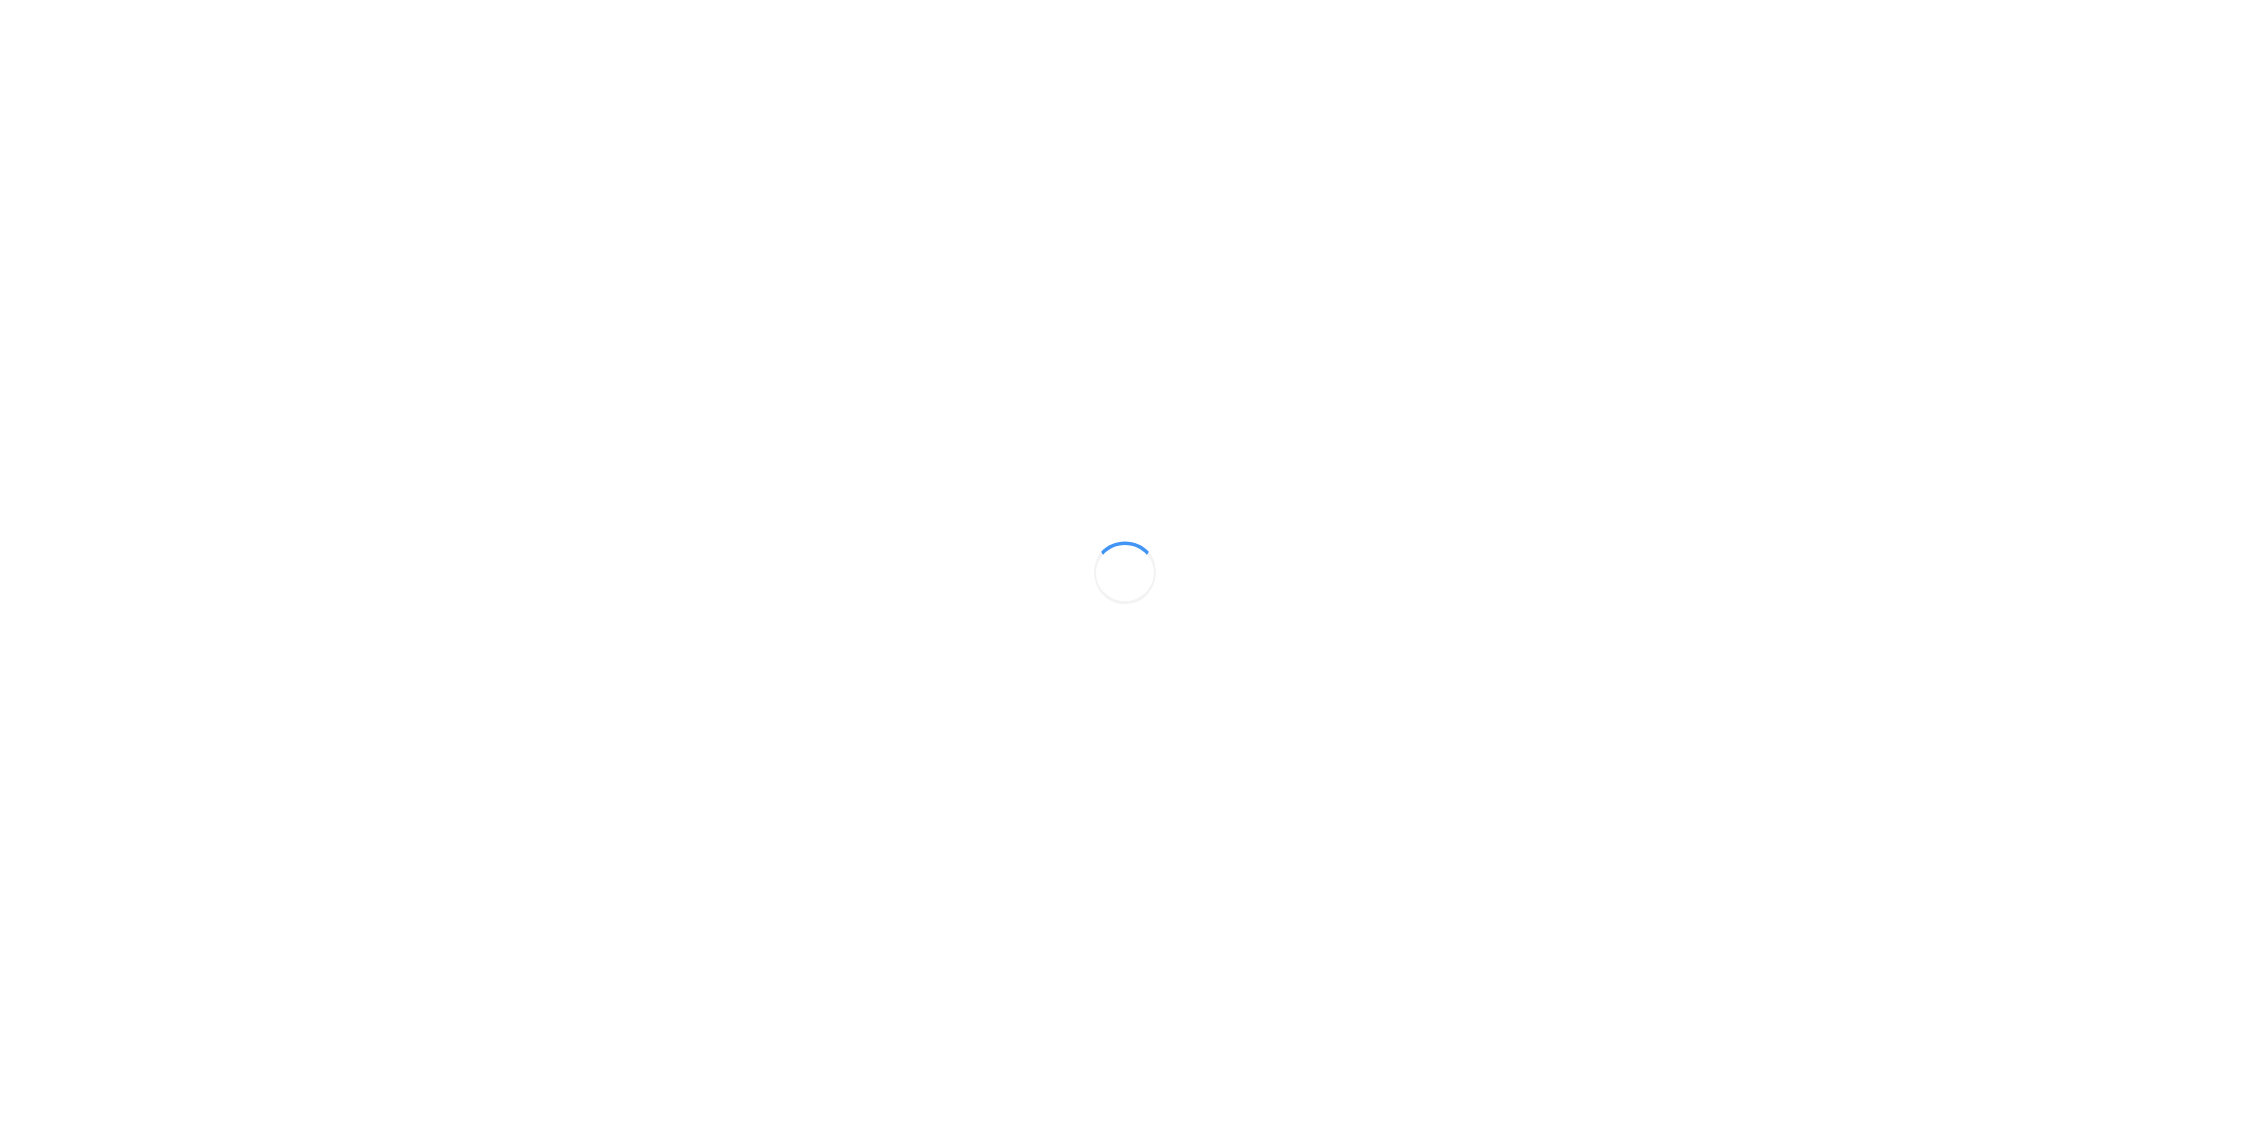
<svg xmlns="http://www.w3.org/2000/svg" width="2249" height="1144">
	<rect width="100%" height="100%" fill="#FFFFFF" />
	<path d="M1125 545C1116 545 1108 549 1103 555L1101 552C1113 538 1137 538 1149 552L1147 555C1142 549 1134 545 1125 545Z" fill="#4295F5" />
	<path d="M1149 552C1159 565 1158 583 1147 595L1145 593C1156 583 1157 566 1147 555Z" fill="#F3F3F3" />
	<path d="M1121 604C1114 603 1108 600 1103 595L1105 593C1116 604 1134 604 1145 593L1147 595C1139 603 1132 604 1121 604Z" fill="#F3F3F3" />
	<path d="M1103 595C1092 583 1091 565 1101 552L1103 555C1093 566 1094 583 1105 593Z" fill="#F3F3F3" />
</svg>
